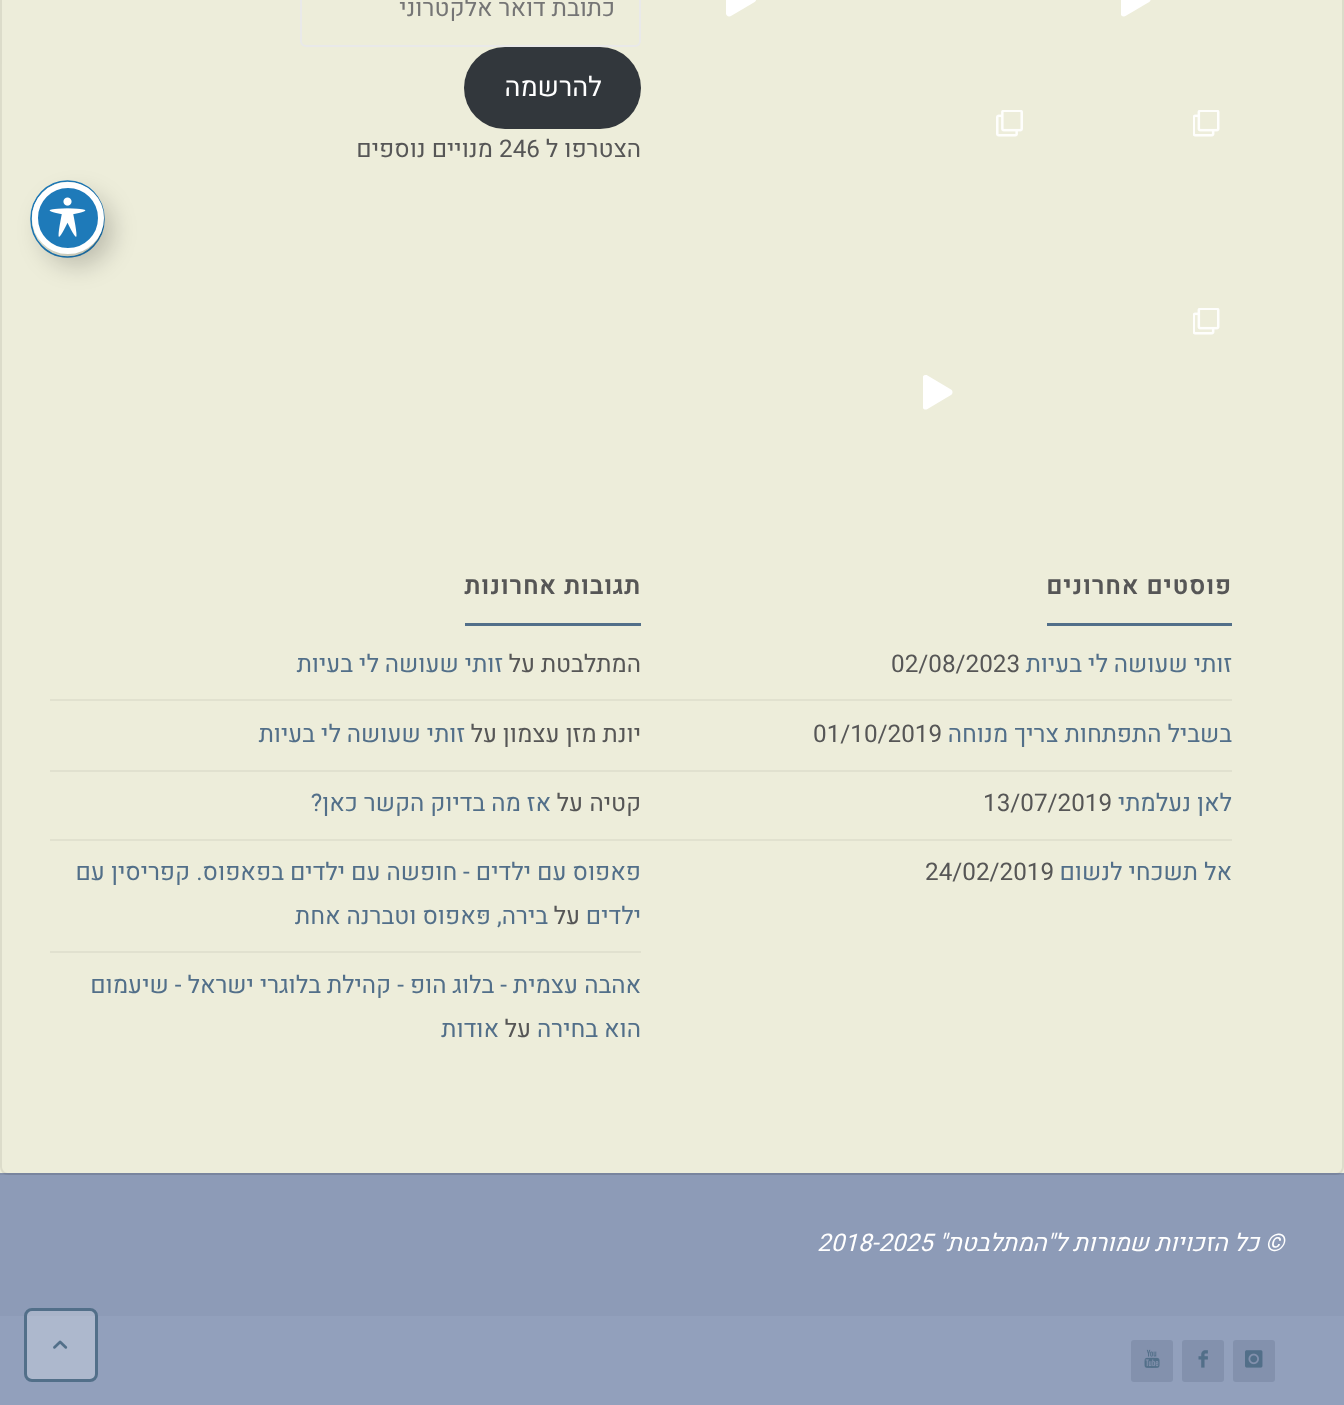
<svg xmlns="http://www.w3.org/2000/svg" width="1344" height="1405">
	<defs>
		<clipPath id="clip1"><rect x="923" y="375" width="30" height="35" /></clipPath>
	</defs>
	<rect width="100%" height="100%" fill="#EDEDDA" />
	<rect x="0" y="1173" width="1344" height="2" fill="#8390AA" />
	<rect x="1" y="-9" width="1342" height="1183" rx="7" fill="none" stroke="#000000" stroke-opacity="0.07" stroke-width="2" />
	<image x="1121" y="0" width="30" height="17" href="assets/img1.png" />
	<image x="726" y="0" width="30" height="17" href="assets/img2.png" />
	<image x="1193" y="110" width="27" height="27" href="assets/img3.png" />
	<image x="996" y="110" width="27" height="27" href="assets/img4.png" />
	<image x="1193" y="308" width="27" height="27" href="assets/img3.png" />
	<g clip-path="url(#clip1)">
		<path d="M951 389.5L927.5 375.5C925.5 374.5 922.5 375.5 922.5 378V406.5C922.5 409 925 410.5 927.5 409L951 395C953 394 953 390.5 951 389.5Z" fill="#FFFFFF" />
	</g>
	<rect x="301" y="-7" width="339" height="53" rx="5" fill="none" stroke="#E9E9E9" stroke-width="2" />
	<text x="615" y="16" font-family="Heebo" font-size="24.25" direction="rtl" fill="#757575">כתובת דואר אלקטרוני</text>
	<rect x="464" y="47" width="177" height="82" rx="41" fill="#32373C" />
	<text x="602" y="96" font-family="Heebo" font-size="27" direction="rtl" fill="#FFFFFF">להרשמה</text>
	<text x="641" y="157" font-family="Heebo" font-size="24.25" direction="rtl" fill="#565656">הצטרפו ל</text>
	<text x="499" y="157" font-family="Heebo" font-size="24.25" fill="#565656">246</text>
	<text x="493" y="157" font-family="Heebo" font-size="24.25" direction="rtl" fill="#565656">מנויים נוספים</text>
	<text x="1232" y="594" font-family="Heebo" font-size="24.25" font-weight="700" letter-spacing="1.5" direction="rtl" fill="#565656">פוסטים אחרונים</text>
	<rect x="1047" y="623" width="185" height="3" fill="#526F89" />
	<rect x="50" y="699" width="1182" height="2" fill="#E1E1CF" />
	<text x="1232" y="672" font-family="Heebo" font-size="24.25" direction="rtl" fill="#526F89">זותי שעושה לי בעיות</text>
	<text x="891" y="672" font-family="Heebo" font-size="24.25" fill="#565656">02/08/2023</text>
	<rect x="50" y="770" width="1182" height="2" fill="#E1E1CF" />
	<text x="1232" y="742" font-family="Heebo" font-size="24.25" direction="rtl" fill="#526F89">בשביל התפתחות צריך מנוחה</text>
	<text x="813" y="742" font-family="Heebo" font-size="24.25" fill="#565656">01/10/2019</text>
	<rect x="50" y="839" width="1182" height="2" fill="#E1E1CF" />
	<text x="1232" y="811" font-family="Heebo" font-size="24.25" direction="rtl" fill="#526F89">לאן נעלמתי</text>
	<text x="983" y="811" font-family="Heebo" font-size="24.25" fill="#565656">13/07/2019</text>
	<text x="1232" y="880" font-family="Heebo" font-size="24.25" direction="rtl" fill="#526F89">אל תשכחי לנשום</text>
	<text x="925" y="880" font-family="Heebo" font-size="24.25" fill="#565656">24/02/2019</text>
	<text x="641" y="594" font-family="Heebo" font-size="24.25" font-weight="700" letter-spacing="1.5" direction="rtl" fill="#565656">תגובות אחרונות</text>
	<rect x="465" y="623" width="176" height="3" fill="#526F89" />
	<g font-family="Heebo" font-size="24.25" direction="rtl" fill="#565656">
		<text x="641" y="672">המתלבטת</text>
		<text x="535" y="672">על</text>
	</g>
	<text x="503" y="672" font-family="Heebo" font-size="24.25" direction="rtl" fill="#526F89">זותי שעושה לי בעיות</text>
	<g font-family="Heebo" font-size="24.25" direction="rtl" fill="#565656">
		<text x="641" y="742">יונת מזן עצמון</text>
		<text x="497" y="742">על</text>
	</g>
	<text x="465" y="742" font-family="Heebo" font-size="24.25" direction="rtl" fill="#526F89">זותי שעושה לי בעיות</text>
	<g font-family="Heebo" font-size="24.25" direction="rtl" fill="#565656">
		<text x="641" y="811">קטיה</text>
		<text x="583" y="811">על</text>
	</g>
	<text x="551" y="811" font-family="Heebo" font-size="24.25" direction="rtl" fill="#526F89">אז מה בדיוק הקשר כאן?</text>
	<rect x="50" y="951" width="591" height="2" fill="#E1E1CF" />
	<g font-family="Heebo" font-size="24.25" direction="rtl" fill="#526F89">
		<text x="641" y="880">פאפוס עם ילדים - חופשה עם ילדים בפאפוס. קפריסין עם</text>
		<text x="641" y="924">ילדים</text>
	</g>
	<text x="580" y="924" font-family="Heebo" font-size="24.25" direction="rtl" fill="#565656">על</text>
	<g font-family="Heebo" font-size="24.25" direction="rtl" fill="#526F89">
		<text x="548" y="924">בירה, פּאפוס וטברנה אחת</text>
		<text x="641" y="993">אהבה עצמית - בלוג הופ - קהילת בלוגרי ישראל - שיעמום</text>
		<text x="641" y="1037">הוא בחירה</text>
	</g>
	<text x="531" y="1037" font-family="Heebo" font-size="24.25" direction="rtl" fill="#565656">על</text>
	<text x="499" y="1037" font-family="Heebo" font-size="24.25" direction="rtl" fill="#526F89">אודות</text>
	<rect x="0" y="1175" width="1344" height="141" fill="#8D9BB7" />
	<text x="1284" y="1251" font-family="Heebo" font-size="24.25" font-style="italic" direction="rtl" fill="#FFFFFF">© כל הזכויות שמורות ל"המתלבטת"</text>
	<text x="817" y="1251" font-family="Heebo" font-size="24.25" font-style="italic" fill="#FFFFFF">2018-2025</text>
	<rect x="0" y="1316" width="1344" height="89" fill="#92A0BC" />
	<rect x="1233" y="1340" width="42" height="42" rx="3" fill="#8391AD" />
	<image x="1245" y="1350" width="18" height="18" href="assets/img5.png" />
	<rect x="1182" y="1340" width="42" height="42" rx="3" fill="#8391AD" />
	<image x="1198" y="1350" width="10" height="18" href="assets/img6.png" />
	<rect x="1131" y="1340" width="42" height="42" rx="3" fill="#8391AD" />
	<image x="1144" y="1349" width="16" height="19" href="assets/img7.png" />
	<rect x="25.5" y="1309.5" width="71" height="71" rx="6.5" fill="#FFFFFF" fill-opacity="0.25" stroke="#526F89" stroke-width="3" />
	<image x="53" y="1340" width="15" height="9" href="assets/img8.png" />
	<path d="M67.5 181C88 181 104 198 104 219C104 240 88 257 67.5 257C47 257 31 240 31 219C31 198 47 181 67.5 181Z" fill="none" stroke="#1E7AB9" stroke-width="1.5" />
	<rect x="41" y="194" width="72" height="72" rx="36" fill="#000000" fill-opacity="0.2" filter="blur(12px)" />
	<circle cx="68" cy="218" r="33" fill="#1E7AB9" stroke="#FFFFFF" stroke-width="6" />
	<image x="49" y="197" width="37" height="40" href="assets/img9.png" />
</svg>
